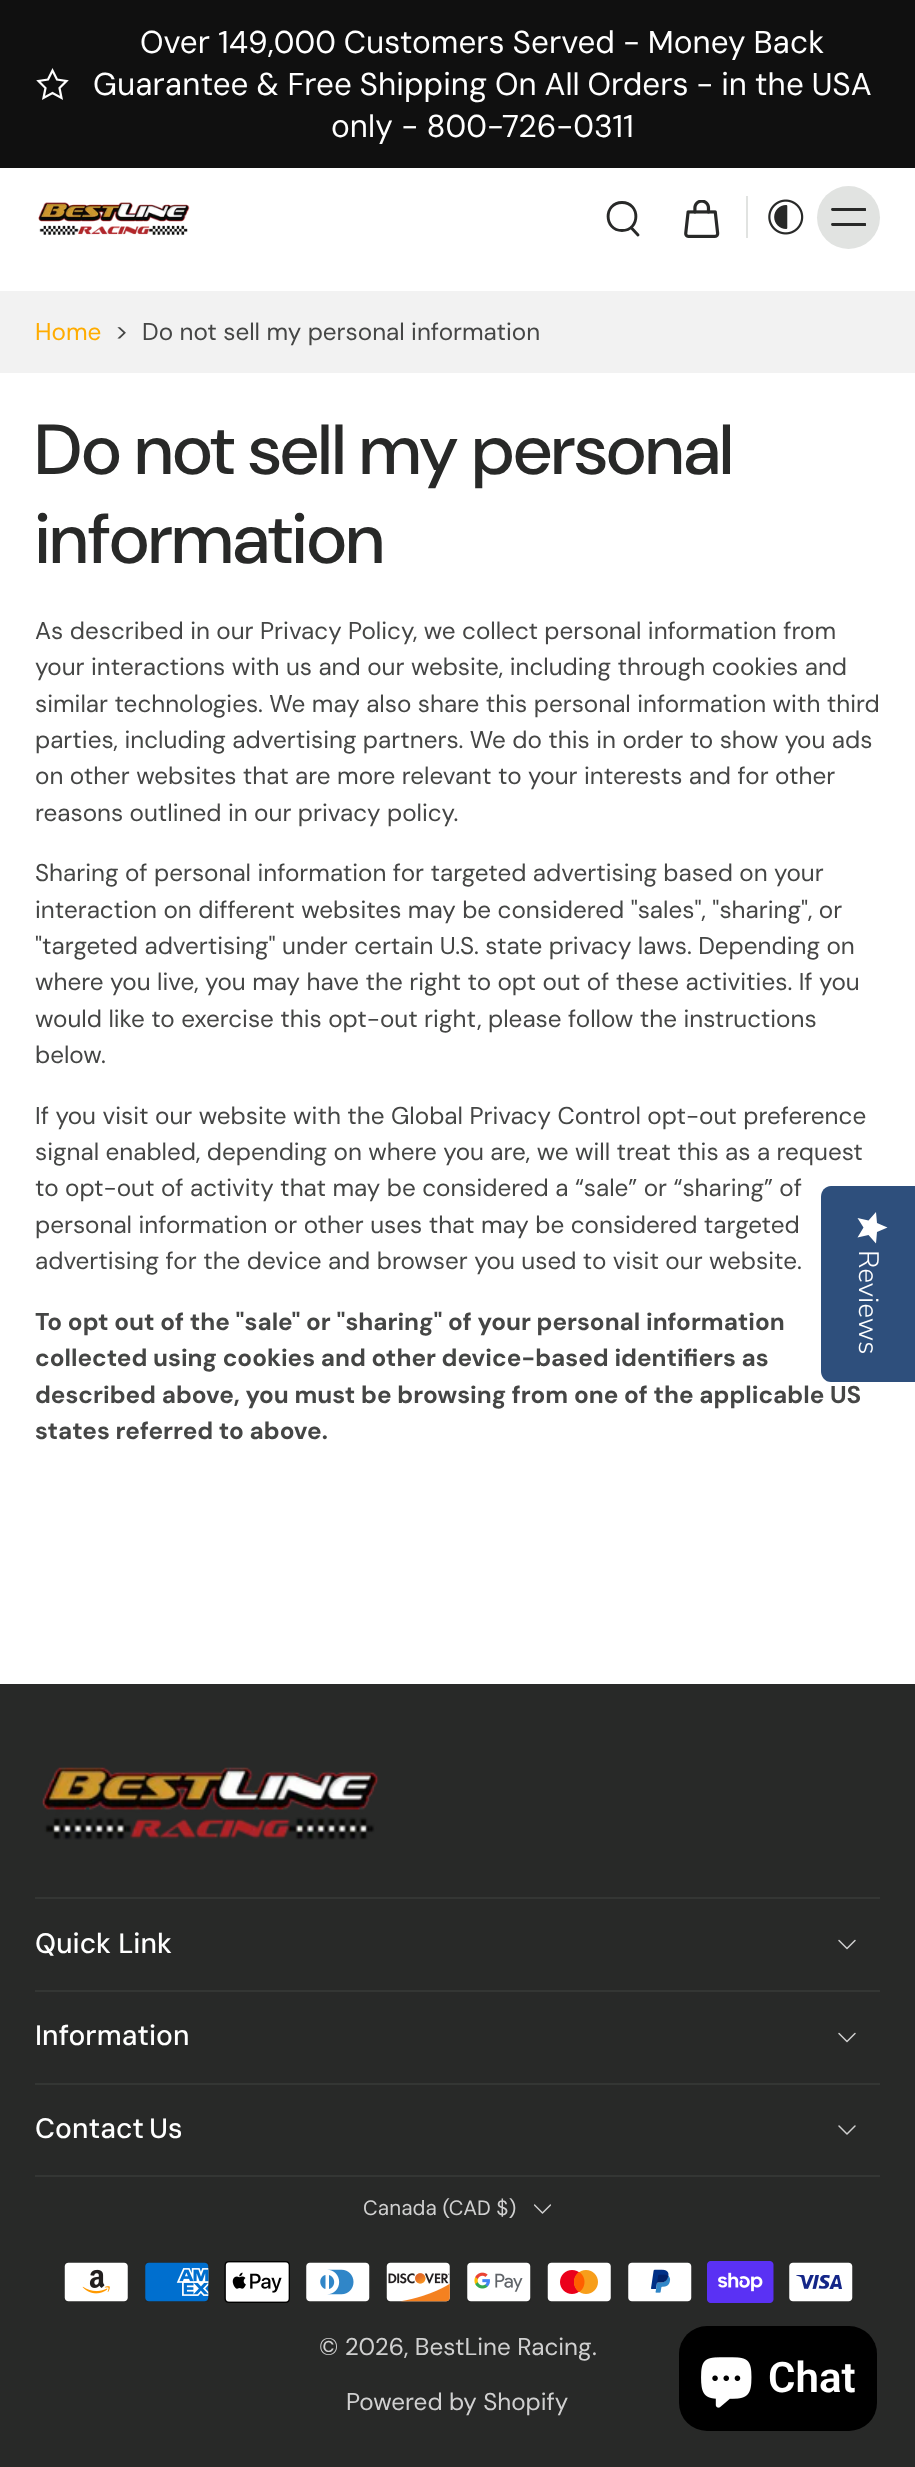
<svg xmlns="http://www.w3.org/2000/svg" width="915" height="2467">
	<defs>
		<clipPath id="clip1"><rect x="831" y="200" width="35" height="35" /></clipPath>
		<clipPath id="clip2"><rect x="534" y="2200" width="17" height="17" /></clipPath>
		<linearGradient id="g1" gradientUnits="userSpaceOnUse" x1="887" y1="1212" x2="887" y2="1243"><stop offset="1" stop-color="#FFFFFF" /><stop offset="1" stop-color="#EAEAEA" /></linearGradient>
	</defs>
	<rect width="100%" height="100%" fill="#FFFFFF" />
	<rect x="0" y="0" width="915" height="168" fill="#101010" />
	<path d="M59.5 88L66.5 81L57 79.5L52.5 70.5L48 79.5L38.5 81L45.5 88L43.5 98L52.5 93L61.5 98Z" fill="none" stroke="#FFFFFF" stroke-width="2.2" />
	<g font-family="DM Sans" font-size="31.5" fill="#FFFFFF">
		<text x="140" y="53" word-spacing="-0.5">Over 149,000 Customers Served - Money Back</text>
		<text x="93" y="95" word-spacing="-0.6">Guarantee &amp; Free Shipping On All Orders - in the USA</text>
		<text x="331" y="137">only - 800-726-0311</text>
	</g>
	<image x="38" y="202" width="152" height="33" href="assets/img1.png" />
	<path d="M622 230.5C640.5 230.5 640.5 202.5 622 202.5C603.5 202.5 603.5 230.5 622 230.5Z" fill="none" stroke="#282928" stroke-width="2.9" />
	<path d="M631.5 228L638 235" fill="none" stroke="#282928" stroke-width="2.9" stroke-linecap="round" />
	<image x="684" y="200" width="36" height="38" href="assets/img2.png" />
	<rect x="746" y="196" width="2" height="42" fill="#E1E3E1" />
	<image x="768" y="199" width="36" height="36" href="assets/img3.png" />
	<circle cx="848.5" cy="217.5" r="31.5" fill="#E1E3E1" />
	<g clip-path="url(#clip1)">
		<path d="M832.5 209.5H865M832.5 224.5H865" fill="none" stroke="#282928" stroke-width="2.9" stroke-linecap="round" />
	</g>
	<rect x="0" y="291" width="915" height="82" fill="#F2F2F2" />
	<text x="35" y="340" font-family="'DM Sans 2'" font-size="24.25" fill="#FFAC00">Home</text>
	<text x="115" y="340" font-family="DM Sans" font-size="24.25" fill="#454645">&gt;</text>
	<text x="142" y="340" font-family="'DM Sans 2'" font-size="24.25" fill="#454645">Do not sell my personal information</text>
	<g font-family="DM Sans" font-size="70.75" font-weight="500" fill="#282928">
		<text x="35" y="474">Do not sell my personal</text>
		<text x="35" y="563">information</text>
	</g>
	<g font-family="'DM Sans 2'" font-size="24.25" fill="#454645">
		<text x="35" y="639">As described in our Privacy Policy, we collect personal information from</text>
		<text x="35" y="675">your interactions with us and our website, including through cookies and</text>
		<text x="35" y="712">similar technologies. We may also share this personal information with third</text>
		<text x="35" y="748">parties, including advertising partners. We do this in order to show you ads</text>
		<text x="35" y="784">on other websites that are more relevant to your interests and for other</text>
		<text x="35" y="821">reasons outlined in our privacy policy.</text>
		<text x="35" y="881">Sharing of personal information for targeted advertising based on your</text>
		<text x="35" y="918">interaction on different websites may be considered "sales", "sharing", or</text>
		<text x="35" y="954">"targeted advertising" under certain U.S. state privacy laws. Depending on</text>
		<text x="35" y="990">where you live, you may have the right to opt out of these activities. If you</text>
		<text x="35" y="1027">would like to exercise this opt-out right, please follow the instructions</text>
		<text x="35" y="1063">below.</text>
		<text x="35" y="1124">If you visit our website with the Global Privacy Control opt-out preference</text>
		<text x="35" y="1160">signal enabled, depending on where you are, we will treat this as a request</text>
		<text x="35" y="1196">to opt-out of activity that may be considered a “sale” or “sharing” of</text>
		<text x="35" y="1233">personal information or other uses that may be considered targeted</text>
		<text x="35" y="1269">advertising for the device and browser you used to visit our website.</text>
	</g>
	<g font-family="DM Sans" font-size="24.25" font-weight="700" fill="#454645">
		<text x="35" y="1330">To opt out of the "sale" or "sharing" of your personal information</text>
		<text x="35" y="1366">collected using cookies and other device-based identifiers as</text>
		<text x="35" y="1403">described above, you must be browsing from one of the applicable US</text>
		<text x="35" y="1439">states referred to above.</text>
	</g>
	<rect x="0" y="1684" width="915" height="783" fill="#282928" />
	<rect x="35" y="1897" width="845" height="2" fill="#343634" />
	<image x="41" y="1767" width="338" height="73" href="assets/img4.png" />
	<rect x="35" y="1990" width="845" height="2" fill="#343634" />
	<text x="35" y="1953" font-family="'DM Sans 2'" font-size="28" font-weight="500" fill="#FFFFFF">Quick Link</text>
	<path d="M855 1940.5L847 1948.5L839 1940.5" fill="none" stroke="#D0D0D0" stroke-width="1.5" stroke-linecap="round" stroke-linejoin="round" />
	<rect x="35" y="2083" width="845" height="2" fill="#343634" />
	<text x="35" y="2045" font-family="'DM Sans 2'" font-size="28" font-weight="500" fill="#FFFFFF">Information</text>
	<path d="M855 2033.5L847 2041.5L839 2033.5" fill="none" stroke="#D0D0D0" stroke-width="1.5" stroke-linecap="round" stroke-linejoin="round" />
	<rect x="35" y="2175" width="845" height="2" fill="#343634" />
	<text x="35" y="2138" word-spacing="-2" font-family="'DM Sans 2'" font-size="28" font-weight="500" fill="#FFFFFF">Contact Us</text>
	<path d="M855 2126L847 2134L839 2126" fill="none" stroke="#D0D0D0" stroke-width="1.5" stroke-linecap="round" stroke-linejoin="round" />
	<text x="363" y="2215" font-family="DM Sans" font-size="20.75" fill="#D0D0D0">Canada (CAD $)</text>
	<g clip-path="url(#clip2)">
		<path d="M550.5 2205L542.5 2213L534.5 2205" fill="none" stroke="#D0D0D0" stroke-width="1.5" stroke-linecap="round" stroke-linejoin="round" />
	</g>
	<image x="64" y="2262" width="64" height="40" href="assets/img5.png" />
	<image x="145" y="2262" width="64" height="40" href="assets/img6.png" />
	<image x="224" y="2261" width="66" height="42" href="assets/img7.png" />
	<image x="306" y="2262" width="64" height="40" href="assets/img8.png" />
	<image x="386" y="2262" width="64" height="40" href="assets/img9.png" />
	<image x="467" y="2262" width="64" height="40" href="assets/img10.png" />
	<image x="547" y="2262" width="64" height="40" href="assets/img11.png" />
	<image x="628" y="2262" width="64" height="40" href="assets/img12.png" />
	<image x="707" y="2261" width="67" height="42" href="assets/img13.png" />
	<image x="789" y="2262" width="64" height="40" href="assets/img14.png" />
	<g font-family="'DM Sans 2'" font-size="24.25" fill="#D0D0D0">
		<text x="319" y="2355">© 2026, BestLine Racing</text>
		<text x="592" y="2355">.</text>
		<text x="346" y="2410">Powered by Shopify</text>
	</g>
	<path d="M915 1186V1382H831C825 1382 821 1377 821 1371V1197C821 1191 825 1186 831 1186Z" fill="#2E4F7C" />
	<path d="M863.5 1227.5L857.5 1237.5L868.5 1235L876 1243.5L877 1232L887.5 1227.5L877 1223L876 1212L868.5 1220.5L857.5 1218Z" fill="url(#g1)" />
	<text x="859" y="1250" transform="rotate(90 859 1250)" font-family="Nunito Sans" font-size="28" font-weight="300" fill="#FFFFFF">Reviews</text>
	<rect x="679" y="2326" width="198" height="105" rx="28" fill="#000000" />
	<image x="701" y="2357" width="51" height="51" href="assets/img15.png" />
	<text x="768" y="2392" font-family="Roboto" font-size="42" font-weight="600" fill="#FFFFFF">Chat</text>
</svg>
